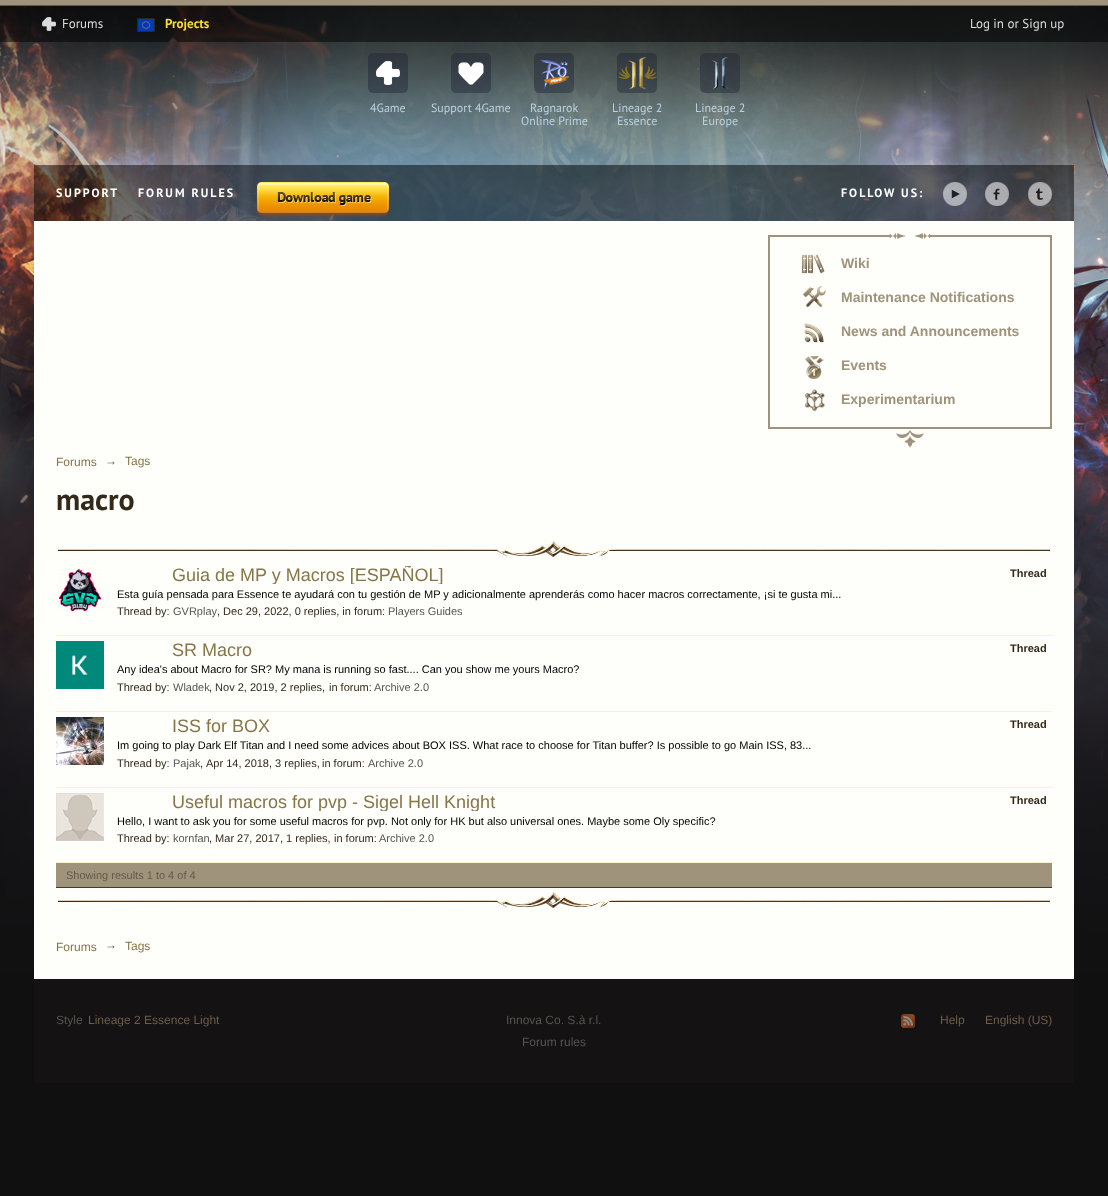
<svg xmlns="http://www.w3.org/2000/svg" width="1108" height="1196">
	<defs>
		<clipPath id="clip1"><rect x="117" y="566" width="930" height="18" /></clipPath>
		<clipPath id="clip2"><rect x="117" y="793" width="930" height="18" /></clipPath>
	</defs>
	<rect width="100%" height="100%" fill="#FFFFFF" />
	<image x="0" y="6" width="1108" height="1190" href="assets/img1.png" />
	<rect x="0" y="0" width="1108" height="5" fill="#A0937B" />
	<rect x="0" y="5" width="1108" height="1" fill="#625A4C" />
	<rect x="0" y="6" width="1108" height="31" fill="#000000" fill-opacity="0.5" />
	<image x="42" y="17" width="14" height="14" href="assets/img2.png" />
	<text x="62" y="28" font-family="PT Sans" font-size="13" fill="#DCDCDC">Forums</text>
	<image x="137" y="18" width="18" height="14" href="assets/img3.png" />
	<text x="165" y="28" font-family="PT Sans" font-size="13" font-weight="700" fill="#F5DB39">Projects</text>
	<path d="M168 37H173L168 42ZM178 37V42L173 37Z" fill="#000000" fill-opacity="0.5" />
	<rect x="0" y="37" width="168" height="5" fill="#000000" fill-opacity="0.5" />
	<rect x="178" y="37" width="930" height="5" fill="#000000" fill-opacity="0.5" />
	<text x="970" y="28" font-family="PT Sans" font-size="13" fill="#DCDCDC">Log in or Sign up</text>
	<image x="368" y="53" width="40" height="40" href="assets/img4.png" />
	<text x="370" y="112" font-family="PT Sans" font-size="12" fill="#BCD1E0">4Game</text>
	<image x="451" y="53" width="40" height="40" href="assets/img5.png" />
	<text x="431" y="112" font-family="PT Sans" font-size="12" fill="#BCD1E0">Support 4Game</text>
	<image x="534" y="53" width="40" height="40" href="assets/img6.png" />
	<g font-family="PT Sans" font-size="12" fill="#BCD1E0">
		<text x="530" y="112">Ragnarok</text>
		<text x="521" y="125">Online Prime</text>
	</g>
	<image x="617" y="53" width="40" height="40" href="assets/img7.png" />
	<g font-family="PT Sans" font-size="12" fill="#BCD1E0">
		<text x="612" y="112">Lineage 2</text>
		<text x="617" y="125">Essence</text>
	</g>
	<image x="700" y="53" width="40" height="40" href="assets/img8.png" />
	<g font-family="PT Sans" font-size="12" fill="#BCD1E0">
		<text x="695" y="112">Lineage 2</text>
		<text x="702" y="125">Europe</text>
	</g>
	<rect x="34" y="165" width="1040" height="56" fill="#000000" fill-opacity="0.5" />
	<g font-family="PT Sans" font-size="12" font-weight="700" letter-spacing="2" fill="#FFFFFF">
		<text x="56" y="197">SUPPORT</text>
		<text x="138" y="197">FORUM RULES</text>
	</g>
	<image x="255" y="182" width="136" height="36" href="assets/img9.png" />
	<text x="841" y="197" font-family="PT Sans" font-size="12" font-weight="700" letter-spacing="2" fill="#FFFFFF">FOLLOW US:</text>
	<image x="943" y="182" width="24" height="24" href="assets/img10.png" />
	<image x="985" y="182" width="24" height="24" href="assets/img11.png" />
	<image x="1028" y="182" width="24" height="24" href="assets/img12.png" />
	<rect x="34" y="221" width="1040" height="758" fill="#FEFEFB" />
	<rect x="769" y="236" width="282" height="192" fill="none" stroke="#9F937B" stroke-width="2" />
	<rect x="888" y="235" width="44" height="2" fill="#FEFEFB" />
	<image x="888" y="233" width="44" height="6" href="assets/img13.png" />
	<image x="801" y="254" width="24" height="20" href="assets/img14.png" />
	<text x="841" y="268" font-family="Liberation Sans" font-size="14" font-weight="700" fill="#9F937B">Wiki</text>
	<image x="802" y="286" width="24" height="22" href="assets/img15.png" />
	<text x="841" y="302" font-family="Liberation Sans" font-size="14" font-weight="700" fill="#9F937B">Maintenance Notifications</text>
	<image x="804" y="323" width="20" height="20" href="assets/img16.png" />
	<text x="841" y="336" font-family="Liberation Sans" font-size="14" font-weight="700" fill="#9F937B">News and Announcements</text>
	<image x="805" y="356" width="19" height="24" href="assets/img17.png" />
	<text x="841" y="370" font-family="Liberation Sans" font-size="14" font-weight="700" fill="#9F937B">Events</text>
	<image x="805" y="389" width="20" height="23" href="assets/img18.png" />
	<text x="841" y="404" font-family="Liberation Sans" font-size="14" font-weight="700" fill="#9F937B">Experimentarium</text>
	<image x="896" y="430" width="28" height="18" href="assets/img19.png" />
	<text x="56" y="466" font-family="Liberation Sans" font-size="12" fill="#867548">Forums</text>
	<text x="105" y="465" font-family="Liberation Sans" font-size="12" fill="#555553">→</text>
	<text x="125" y="465" font-family="Liberation Sans" font-size="12" fill="#867548">Tags</text>
	<text x="56" y="510" font-family="PT Sans" font-size="30" font-weight="700" fill="#33291A">macro</text>
	<image x="58" y="541" width="992" height="367" href="assets/img20.png" />
	<rect x="56" y="635" width="996" height="1" fill="#FFF1CA" />
	<image x="58" y="568" width="44" height="44" href="assets/img21.png" />
	<g clip-path="url(#clip1)">
		<text x="172" y="581" font-family="Liberation Sans" font-size="18" fill="#867548">Guia de MP y Macros [ESPAÑOL]</text>
	</g>
	<text x="1010" y="577" font-family="Liberation Sans" font-size="11" font-weight="700" fill="#33291A">Thread</text>
	<text x="117" y="598" font-family="Liberation Sans" font-size="11" fill="#000000">Esta guía pensada para Essence te ayudará con tu gestión de MP y adicionalmente aprenderás como hacer macros correctamente, ¡si te gusta mi...</text>
	<text x="117" y="615" font-family="Liberation Sans" font-size="11" fill="#33291A">Thread by:</text>
	<text x="173" y="615" font-family="Liberation Sans" font-size="11" fill="#555553">GVRplay</text>
	<text x="217" y="615" font-family="Liberation Sans" font-size="11" fill="#33291A">, Dec 29, 2022, 0 replies, in forum:</text>
	<text x="388" y="615" font-family="Liberation Sans" font-size="11" fill="#555553">Players Guides</text>
	<rect x="56" y="711" width="996" height="1" fill="#FFF1CA" />
	<image x="56" y="641" width="48" height="48" href="assets/img22.png" />
	<text x="172" y="656" font-family="Liberation Sans" font-size="18" fill="#867548">SR Macro</text>
	<text x="1010" y="652" font-family="Liberation Sans" font-size="11" font-weight="700" fill="#33291A">Thread</text>
	<text x="117" y="673" font-family="Liberation Sans" font-size="11" fill="#000000">Any idea's about Macro for SR? My mana is running so fast.... Can you show me yours Macro?</text>
	<text x="117" y="691" font-family="Liberation Sans" font-size="11" fill="#33291A">Thread by:</text>
	<text x="173" y="691" font-family="Liberation Sans" font-size="11" fill="#555553">Wladek</text>
	<g font-family="Liberation Sans" font-size="11" fill="#33291A">
		<text x="209" y="691">, Nov 2, 2019, 2 replies,</text>
		<text x="329" y="691">in forum:</text>
	</g>
	<text x="374" y="691" font-family="Liberation Sans" font-size="11" fill="#555553">Archive 2.0</text>
	<rect x="56" y="787" width="996" height="1" fill="#FFF1CA" />
	<image x="56" y="717" width="48" height="48" href="assets/img23.png" />
	<text x="172" y="732" font-family="Liberation Sans" font-size="18" fill="#867548">ISS for BOX</text>
	<text x="1010" y="728" font-family="Liberation Sans" font-size="11" font-weight="700" fill="#33291A">Thread</text>
	<text x="117" y="749" font-family="Liberation Sans" font-size="11" fill="#000000">Im going to play Dark Elf Titan and I need some advices about BOX ISS. What race to choose for Titan buffer? Is possible to go Main ISS, 83...</text>
	<text x="117" y="767" font-family="Liberation Sans" font-size="11" fill="#33291A">Thread by:</text>
	<text x="173" y="767" font-family="Liberation Sans" font-size="11" fill="#555553">Pajak</text>
	<g font-family="Liberation Sans" font-size="11" fill="#33291A">
		<text x="200" y="767">,</text>
		<text x="206" y="767">Apr 14, 2018, 3 replies,</text>
		<text x="322" y="767">in forum:</text>
	</g>
	<text x="368" y="767" font-family="Liberation Sans" font-size="11" fill="#555553">Archive 2.0</text>
	<rect x="56" y="862" width="996" height="1" fill="#FFF1CA" />
	<image x="56" y="793" width="48" height="48" href="assets/img24.png" />
	<g clip-path="url(#clip2)">
		<text x="172" y="808" font-family="Liberation Sans" font-size="18" fill="#867548">Useful macros for pvp - Sigel Hell Knight</text>
	</g>
	<text x="1010" y="804" font-family="Liberation Sans" font-size="11" font-weight="700" fill="#33291A">Thread</text>
	<text x="117" y="825" font-family="Liberation Sans" font-size="11" fill="#000000">Hello, I want to ask you for some useful macros for pvp. Not only for HK but also universal ones. Maybe some Oly specific?</text>
	<text x="117" y="842" font-family="Liberation Sans" font-size="11" fill="#33291A">Thread by:</text>
	<text x="173" y="842" font-family="Liberation Sans" font-size="11" fill="#555553">kornfan</text>
	<g font-family="Liberation Sans" font-size="11" fill="#33291A">
		<text x="209" y="842">, Mar 27, 2017, 1 replies,</text>
		<text x="334" y="842">in forum:</text>
	</g>
	<text x="379" y="842" font-family="Liberation Sans" font-size="11" fill="#555553">Archive 2.0</text>
	<rect x="56" y="863" width="996" height="24" fill="#A0937B" />
	<rect x="56" y="887" width="996" height="1" fill="#403B31" />
	<text x="66" y="879" font-family="Liberation Sans" font-size="11" fill="#625A4C">Showing results 1 to 4 of 4</text>
	<text x="56" y="951" font-family="Liberation Sans" font-size="12" fill="#867548">Forums</text>
	<text x="105" y="949" font-family="Liberation Sans" font-size="12" fill="#555553">→</text>
	<text x="125" y="950" font-family="Liberation Sans" font-size="12" fill="#867548">Tags</text>
	<rect x="34" y="979" width="1040" height="104" fill="#141212" />
	<text x="56" y="1024" font-family="Liberation Sans" font-size="12" fill="#555553">Style</text>
	<text x="88" y="1024" font-family="Liberation Sans" font-size="12" fill="#6C5E4A">Lineage 2 Essence Light</text>
	<g font-family="Liberation Sans" font-size="12" fill="#555553">
		<text x="506" y="1024">Innova Co. S.à r.l.</text>
		<text x="522" y="1046">Forum rules</text>
	</g>
	<image x="901" y="1014" width="14" height="14" href="assets/img25.png" />
	<g font-family="Liberation Sans" font-size="12" fill="#6C5E4A">
		<text x="940" y="1024">Help</text>
		<text x="985" y="1024">English (US)</text>
	</g>
</svg>
